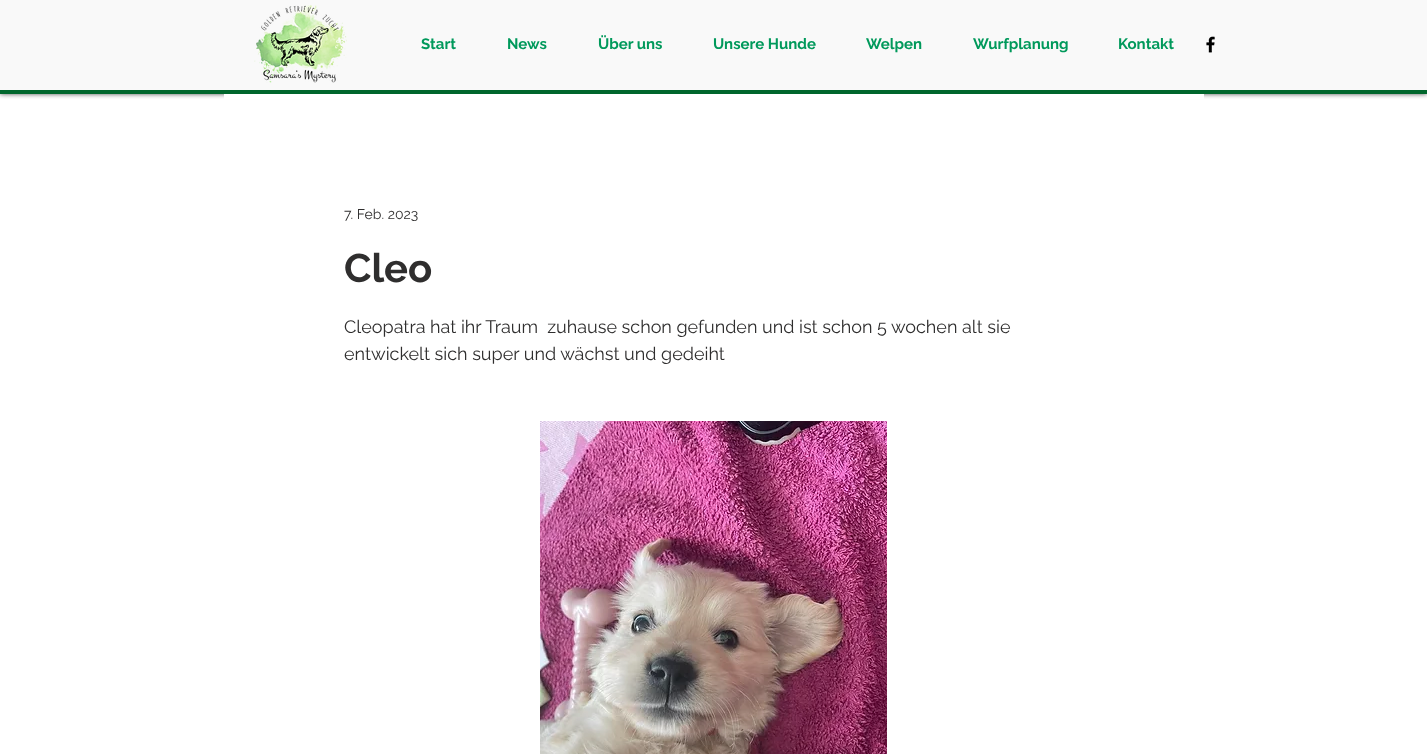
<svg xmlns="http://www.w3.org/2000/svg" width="1427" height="754">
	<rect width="100%" height="100%" fill="#FFFFFF" />
	<rect x="0" y="0" width="1427" height="94" fill="#000000" fill-opacity="0.7" filter="blur(2.5px)" />
	<rect x="0" y="0" width="1427" height="90" fill="#F9F9F9" />
	<rect x="0" y="90" width="1427" height="4" fill="#00662C" />
	<image x="254" y="5" width="93" height="78" href="assets/img1.png" />
	<g font-family="Raleway" font-size="15" font-weight="700" fill="#00995B">
		<text x="421" y="49">Start</text>
		<text x="507" y="49">News</text>
		<text x="598" y="49">Über uns</text>
		<text x="713" y="49">Unsere Hunde</text>
		<text x="866" y="49">Welpen</text>
		<text x="973" y="49">Wurfplanung</text>
		<text x="1118" y="49">Kontakt</text>
	</g>
	<image x="1206" y="36" width="9" height="17" href="assets/img2.png" />
	<rect x="224" y="94" width="980" height="5" fill="#FFFFFF" />
	<text x="344" y="219" font-family="Raleway" font-size="14" fill="#2F2E2E">7. Feb. 2023</text>
	<text x="344" y="282" font-family="Raleway" font-size="40" font-weight="700" fill="#2F2E2E">Cleo</text>
	<g font-family="Raleway" font-size="18" fill="#2F2E2E">
		<text x="344" y="333" xml:space="preserve">Cleopatra hat ihr Traum  zuhause schon gefunden und ist schon 5 wochen alt sie</text>
		<text x="344" y="360">entwickelt sich super und wächst und gedeiht</text>
	</g>
	<image x="540" y="421" width="347" height="333" href="assets/img3.png" />
</svg>
